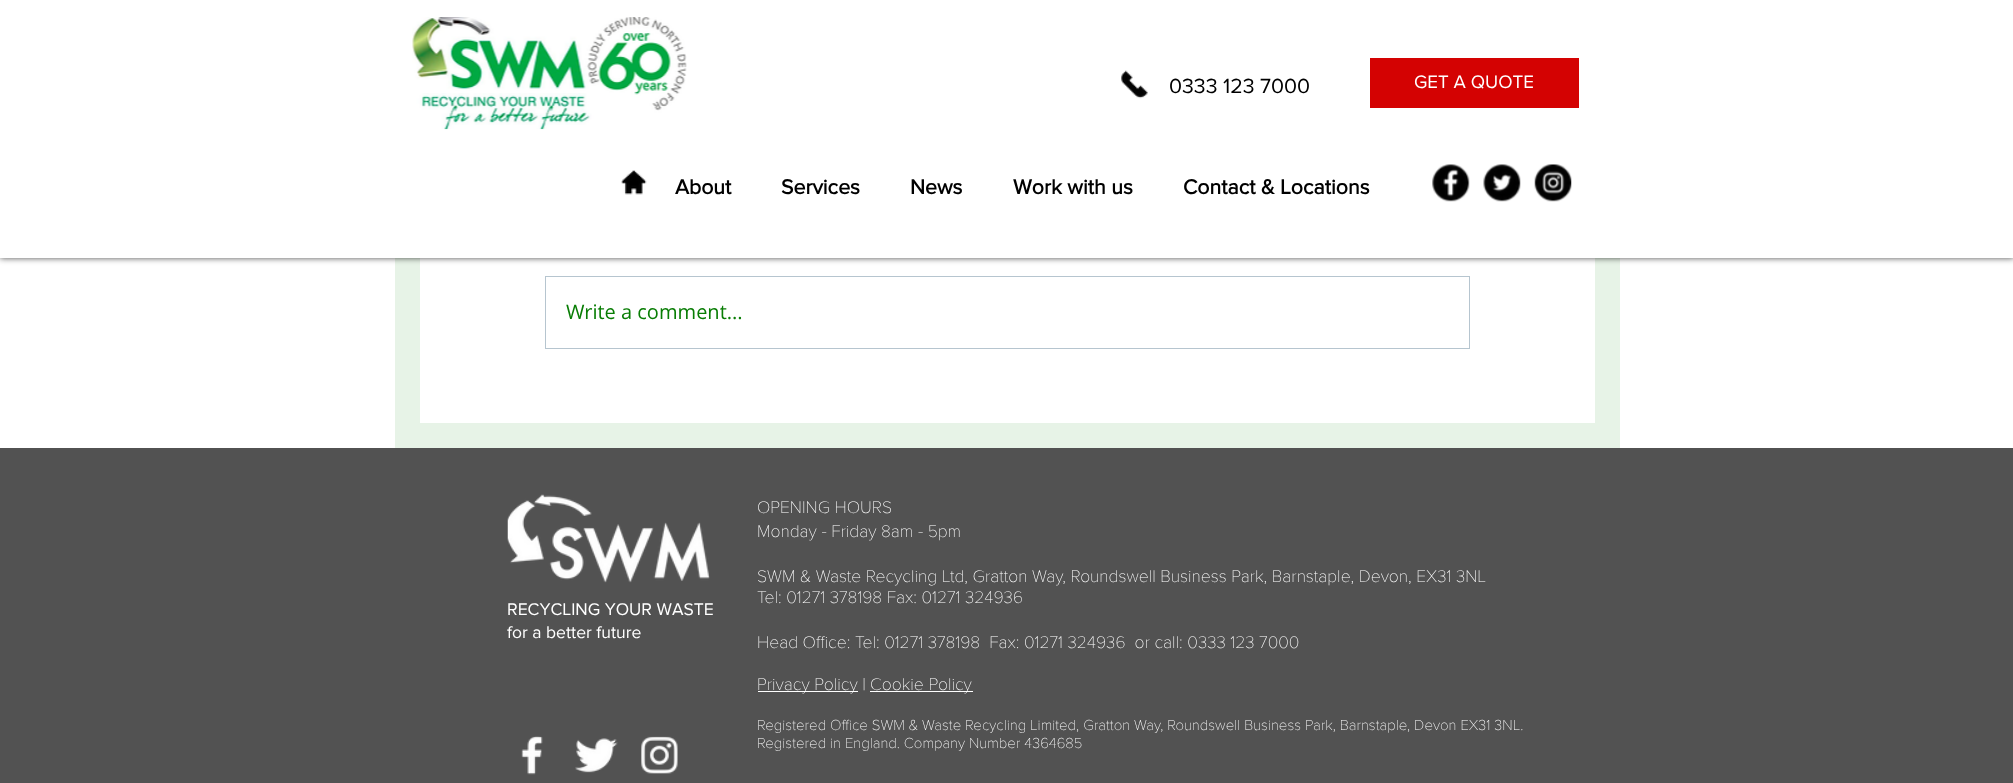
<svg xmlns="http://www.w3.org/2000/svg" width="2013" height="783">
	<rect width="100%" height="100%" fill="#FFFFFF" />
	<rect x="395" y="258" width="1225" height="190" fill="#E7F3E7" />
	<rect x="420" y="258" width="1175" height="165" fill="#FFFFFF" />
	<rect x="0" y="0" width="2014" height="258" fill="#000000" fill-opacity="0.7" filter="blur(3px)" />
	<rect x="0" y="0" width="2013" height="258" fill="#FFFFFF" />
	<image x="412" y="17" width="275" height="113" href="assets/img1.png" />
	<image x="1121" y="70" width="27" height="29" href="assets/img2.png" />
	<text x="1169" y="93" font-family="'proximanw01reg'" font-size="21.25" fill="#000000">0333 123 7000</text>
	<rect x="1370" y="58" width="209" height="50" fill="#D40202" />
	<text x="1414" y="88" font-family="'proximanw01reg'" font-size="18.75" fill="#FFFFFF">GET A QUOTE</text>
	<image x="621" y="170" width="26" height="25" href="assets/img3.png" />
	<g font-family="'proximanw01reg'" font-size="21.25" font-weight="700" fill="#000000">
		<text x="675" y="194">About</text>
		<text x="781" y="194">Services</text>
		<text x="910" y="194">News</text>
		<text x="1013" y="194">Work with us</text>
		<text x="1183" y="194">Contact &amp; Locations</text>
	</g>
	<image x="1432" y="164" width="38" height="38" href="assets/img4.png" />
	<image x="1483" y="164" width="38" height="38" href="assets/img5.png" />
	<image x="1534" y="164" width="38" height="38" href="assets/img6.png" />
	<rect x="545.5" y="276.5" width="924" height="72" fill="none" stroke="#B6C5CF" />
	<text x="566" y="319" font-family="Open Sans" font-size="20" fill="#087D04">Write a comment...</text>
	<rect x="0" y="448" width="2013" height="335" fill="#525252" />
	<image x="507" y="494" width="203" height="89" href="assets/img7.png" />
	<g font-family="Proxima Nova" font-size="17.5" font-weight="100" fill="#FFFFFF">
		<text x="757" y="513">OPENING HOURS</text>
		<text x="757" y="537">Monday - Friday 8am - 5pm</text>
		<text x="757" y="582">SWM &amp; Waste Recycling Ltd, Gratton Way, Roundswell Business Park, Barnstaple, Devon, EX31 3NL</text>
		<text x="757" y="603">Tel: 01271 378198 Fax: 01271 324936</text>
		<text x="757" y="648" xml:space="preserve">Head Office: Tel: 01271 378198  Fax: 01271 324936  or call: 0333 123 7000</text>
	</g>
	<rect x="758" y="691" width="100" height="1" fill="#FFFFFF" />
	<text x="757" y="690" font-family="Proxima Nova" font-size="17.5" font-weight="100" fill="#FFFFFF">Privacy Policy |</text>
	<rect x="870" y="691" width="103" height="1" fill="#FFFFFF" />
	<text x="870" y="690" font-family="Proxima Nova" font-size="17.5" font-weight="100" fill="#FFFFFF">Cookie Policy</text>
	<g font-family="Proxima Nova" font-size="15" font-weight="100" fill="#FFFFFF">
		<text x="757" y="730">Registered Office SWM &amp; Waste Recycling Limited, Gratton Way, Roundswell Business Park, Barnstaple, Devon EX31 3NL.</text>
		<text x="757" y="748">Registered in England. Company Number 4364685</text>
	</g>
	<g font-family="'proximanw01reg'" font-size="17.5" fill="#FFFFFF">
		<text x="507" y="615">RECYCLING YOUR WASTE</text>
		<text x="507" y="638">for a better future</text>
	</g>
	<image x="521" y="736" width="22" height="39" href="assets/img8.png" />
	<image x="575" y="738" width="43" height="35" href="assets/img9.png" />
	<image x="641" y="736" width="37" height="38" href="assets/img10.png" />
</svg>
